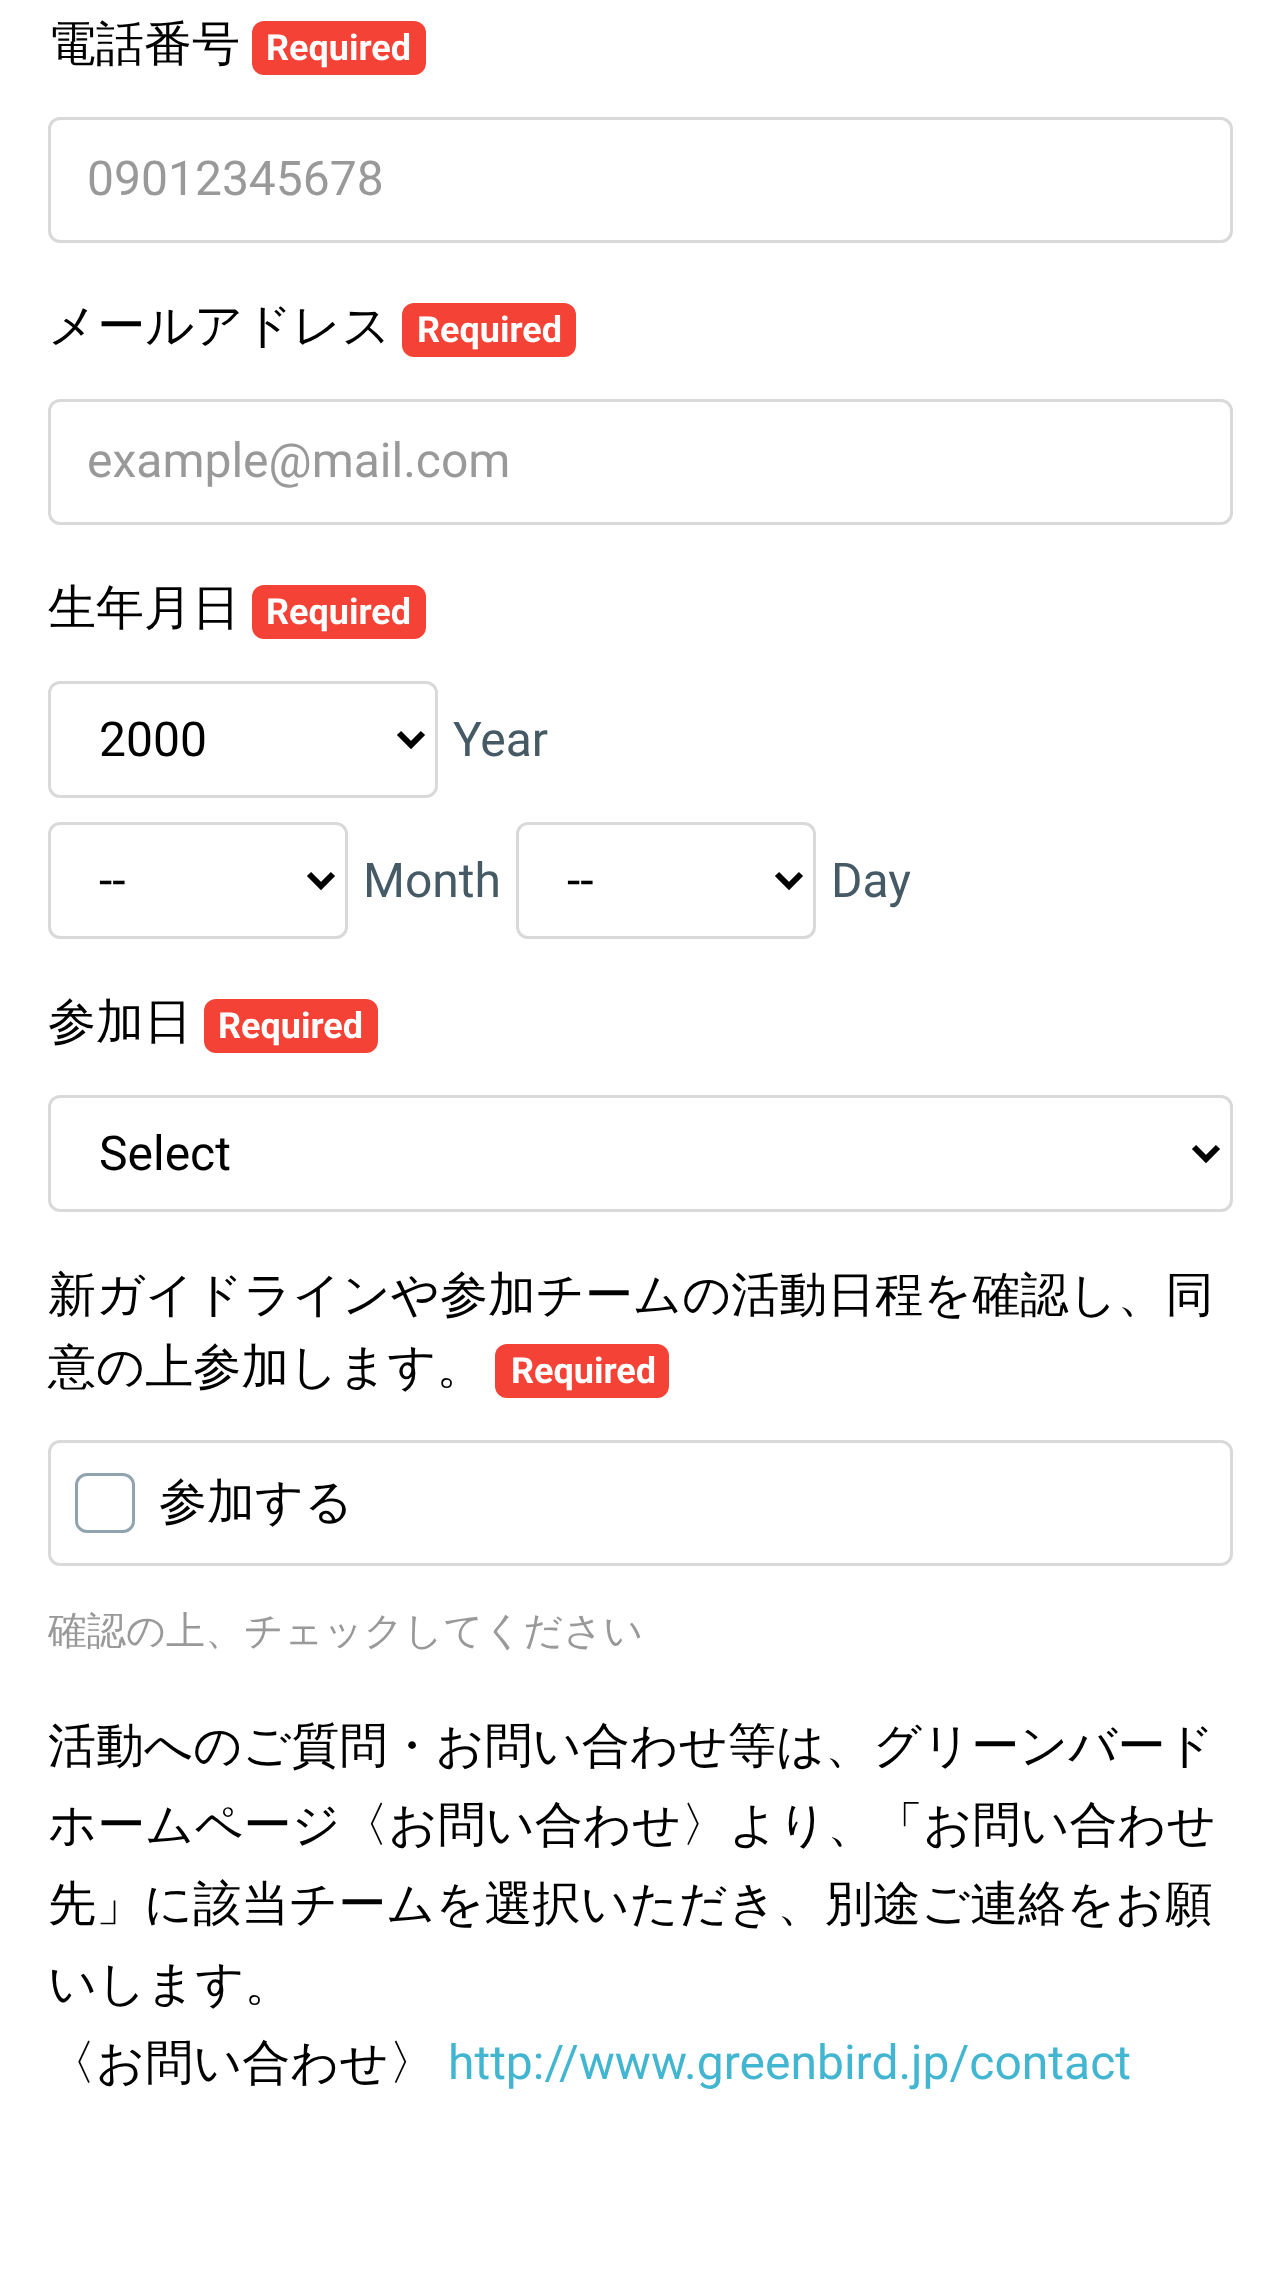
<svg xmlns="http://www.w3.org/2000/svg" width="1281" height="2269">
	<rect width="100%" height="100%" fill="#FFFFFF" />
	<text x="48" y="60" font-family="WenQuanYi Zen Hei" font-size="48" font-weight="500" fill="#000000">電話番号</text>
	<rect x="252" y="21" width="174" height="54" rx="12" fill="#F44336" />
	<text x="266" y="60" font-family="Roboto" font-size="36" font-weight="700" fill="#FFFFFF">Required</text>
	<rect x="49.5" y="118.5" width="1182" height="123" rx="10.5" fill="none" stroke="#D9D9D9" stroke-width="3" />
	<text x="87" y="195" font-family="Roboto" font-size="48" fill="#999999">09012345678</text>
	<text x="48" y="342" font-family="WenQuanYi Zen Hei" font-size="48" font-weight="500" fill="#000000">メールアドレス</text>
	<rect x="402" y="303" width="174" height="54" rx="12" fill="#F44336" />
	<text x="417" y="342" font-family="Roboto" font-size="36" font-weight="700" fill="#FFFFFF">Required</text>
	<rect x="49.5" y="400.5" width="1182" height="123" rx="10.5" fill="none" stroke="#D9D9D9" stroke-width="3" />
	<text x="87" y="477" font-family="Roboto" font-size="48" fill="#999999">example@mail.com</text>
	<text x="48" y="624" font-family="WenQuanYi Zen Hei" font-size="48" font-weight="500" fill="#000000">生年月日</text>
	<rect x="252" y="585" width="174" height="54" rx="12" fill="#F44336" />
	<text x="266" y="624" font-family="Roboto" font-size="36" font-weight="700" fill="#FFFFFF">Required</text>
	<rect x="49.5" y="682.5" width="387" height="114" rx="10.5" fill="none" stroke="#D9D9D9" stroke-width="3" />
	<path d="M399 733L411 745L423 733" fill="none" stroke="#000000" stroke-width="6" />
	<text x="99" y="756" font-family="Roboto" font-size="48" fill="#000000">2000</text>
	<text x="453" y="756" font-family="Roboto" font-size="48" fill="#455A64">Year</text>
	<rect x="49.5" y="823.5" width="297" height="114" rx="10.5" fill="none" stroke="#D9D9D9" stroke-width="3" />
	<path d="M309 874L321 886L333 874" fill="none" stroke="#000000" stroke-width="6" />
	<text x="99" y="897" font-family="Roboto" font-size="48" fill="#000000">--</text>
	<text x="363" y="897" font-family="Roboto" font-size="48" fill="#455A64">Month</text>
	<rect x="517.5" y="823.5" width="297" height="114" rx="10.5" fill="none" stroke="#D9D9D9" stroke-width="3" />
	<path d="M777 874L789 886L801 874" fill="none" stroke="#000000" stroke-width="6" />
	<text x="567" y="897" font-family="Roboto" font-size="48" fill="#000000">--</text>
	<text x="831" y="897" font-family="Roboto" font-size="48" fill="#455A64">Day</text>
	<text x="48" y="1038" font-family="WenQuanYi Zen Hei" font-size="48" font-weight="500" fill="#000000">参加日</text>
	<rect x="204" y="999" width="174" height="54" rx="12" fill="#F44336" />
	<text x="218" y="1038" font-family="Roboto" font-size="36" font-weight="700" fill="#FFFFFF">Required</text>
	<rect x="49.5" y="1096.5" width="1182" height="114" rx="10.5" fill="none" stroke="#D9D9D9" stroke-width="3" />
	<path d="M1194 1147L1206 1159L1218 1147" fill="none" stroke="#000000" stroke-width="6" />
	<text x="99" y="1170" font-family="Roboto" font-size="48" fill="#000000">Select</text>
	<g font-family="WenQuanYi Zen Hei" font-size="48" font-weight="500" fill="#000000">
		<text x="48" y="1311">新ガイドラインや参加チームの活動日程を確認し、同</text>
		<text x="48" y="1383">意の上参加します。</text>
	</g>
	<rect x="495" y="1344" width="174" height="54" rx="12" fill="#F44336" />
	<text x="511" y="1383" font-family="Roboto" font-size="36" font-weight="700" fill="#FFFFFF">Required</text>
	<rect x="49.5" y="1441.5" width="1182" height="123" rx="10.5" fill="none" stroke="#D9D9D9" stroke-width="3" />
	<rect x="76.5" y="1474.5" width="57" height="57" rx="10.5" fill="none" stroke="#90A4AE" stroke-width="3" />
	<text x="159" y="1518" font-family="WenQuanYi Zen Hei" font-size="48" font-weight="500" fill="#000000">参加する</text>
	<text x="48" y="1644" font-family="WenQuanYi Zen Hei" font-size="39" font-weight="500" fill="#999999">確認の上、チェックしてください</text>
	<g font-family="WenQuanYi Zen Hei" font-size="48" font-weight="500" fill="#000000">
		<text x="48" y="1762">活動へのご質問・お問い合わせ等は、グリーンバード</text>
		<text x="48" y="1841">ホームページ〈お問い合わせ〉より、「お問い合わせ</text>
		<text x="48" y="1920">先」に該当チームを選択いただき、別途ご連絡をお願</text>
		<text x="48" y="2000">いします。</text>
		<text x="48" y="2079">〈お問い合わせ〉</text>
	</g>
	<text x="448" y="2079" font-family="Roboto" font-size="48" fill="#42B5D1">http://www.greenbird.jp/contact</text>
</svg>
